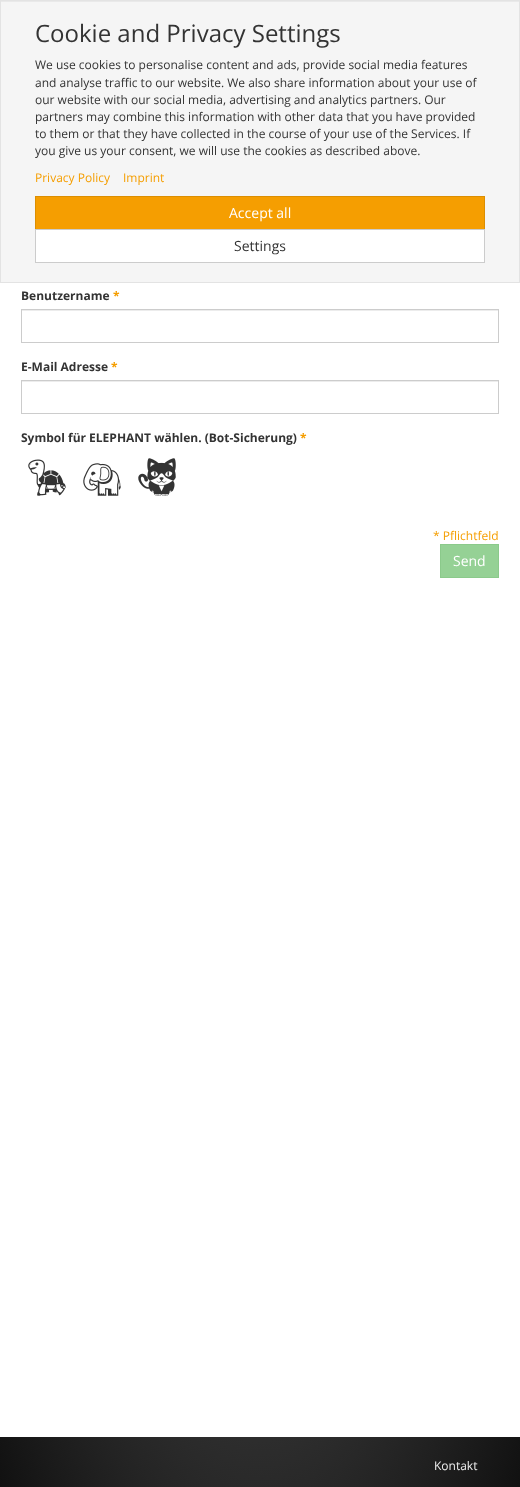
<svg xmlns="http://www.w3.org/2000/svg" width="520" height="1487">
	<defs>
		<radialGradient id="g1" gradientUnits="userSpaceOnUse" cx="0" cy="0" r="1" gradientTransform="matrix(368 0 0 1051 260 744)"><stop offset="0" stop-color="#646464" /><stop offset="1" stop-color="#111111" /></radialGradient>
	</defs>
	<rect width="100%" height="100%" fill="#FFFFFF" />
	<rect x="1" y="2" width="518" height="280" fill="#F5F5F5" />
	<rect x="1" y="1" width="518" height="1" fill="#E9E9E9" />
	<rect x="0.5" y="0.5" width="519" height="282" fill="none" stroke="#E3E3E3" />
	<text x="35" y="42" font-family="Open Sans" font-size="24" fill="#333333">Cookie and Privacy Settings</text>
	<g font-family="Open Sans" font-size="12" fill="#333333">
		<text x="35" y="69">We use cookies to personalise content and ads, provide social media features</text>
		<text x="35" y="87">and analyse traffic to our website. We also share information about your use of</text>
		<text x="35" y="104">our website with our social media, advertising and analytics partners. Our</text>
		<text x="35" y="121">partners may combine this information with other data that you have provided</text>
		<text x="35" y="138">to them or that they have collected in the course of your use of the Services. If</text>
		<text x="35" y="155">you give us your consent, we will use the cookies as described above.</text>
	</g>
	<g font-family="Open Sans" font-size="12" fill="#F59E01">
		<text x="35" y="182">Privacy Policy</text>
		<text x="123" y="182">Imprint</text>
	</g>
	<rect x="35.5" y="196.5" width="449" height="33" fill="#F59E01" stroke="#DC8E01" />
	<text x="229" y="218" font-family="Open Sans" font-size="14" fill="#FFFFFF">Accept all</text>
	<rect x="35.5" y="229.5" width="449" height="33" fill="#FFFFFF" stroke="#CCCCCC" />
	<text x="234" y="251" font-family="Open Sans" font-size="14" fill="#333333">Settings</text>
	<text x="21" y="300" font-family="Open Sans" font-size="12" font-weight="700" fill="#333333">Benutzername</text>
	<text x="113" y="300" font-family="Open Sans" font-size="12" font-weight="700" fill="#F59E01">*</text>
	<rect x="22" y="310" width="476" height="1" fill="#ECECEC" />
	<rect x="21.5" y="309.5" width="477" height="33" fill="none" stroke="#CCCCCC" />
	<text x="21" y="371" font-family="Open Sans" font-size="12" font-weight="700" fill="#333333">E-Mail Adresse</text>
	<text x="111" y="371" font-family="Open Sans" font-size="12" font-weight="700" fill="#F59E01">*</text>
	<rect x="22" y="381" width="476" height="1" fill="#ECECEC" />
	<rect x="21.5" y="380.5" width="477" height="33" fill="none" stroke="#CCCCCC" />
	<text x="21" y="442" font-family="Open Sans" font-size="12" font-weight="700" fill="#333333">Symbol für ELEPHANT wählen. (Bot-Sicherung)</text>
	<text x="300" y="442" font-family="Open Sans" font-size="12" font-weight="700" fill="#F59E01">*</text>
	<image x="28" y="459" width="38" height="37" href="assets/img1.png" />
	<image x="83" y="463" width="38" height="33" href="assets/img2.png" />
	<image x="138" y="458" width="38" height="38" href="assets/img3.png" />
	<text x="433" y="540" font-family="Open Sans" font-size="12" fill="#F59E01">* Pflichtfeld</text>
	<rect x="440.5" y="544.5" width="58" height="33" fill="#95D195" stroke="#8BCA8B" />
	<text x="453" y="566" font-family="Open Sans" font-size="14" fill="#FFFFFF">Send</text>
	<rect x="0" y="1437" width="520" height="50" fill="url(#g1)" />
	<text x="434" y="1470" font-family="Open Sans" font-size="12" fill="#EEEEEE">Kontakt</text>
</svg>
